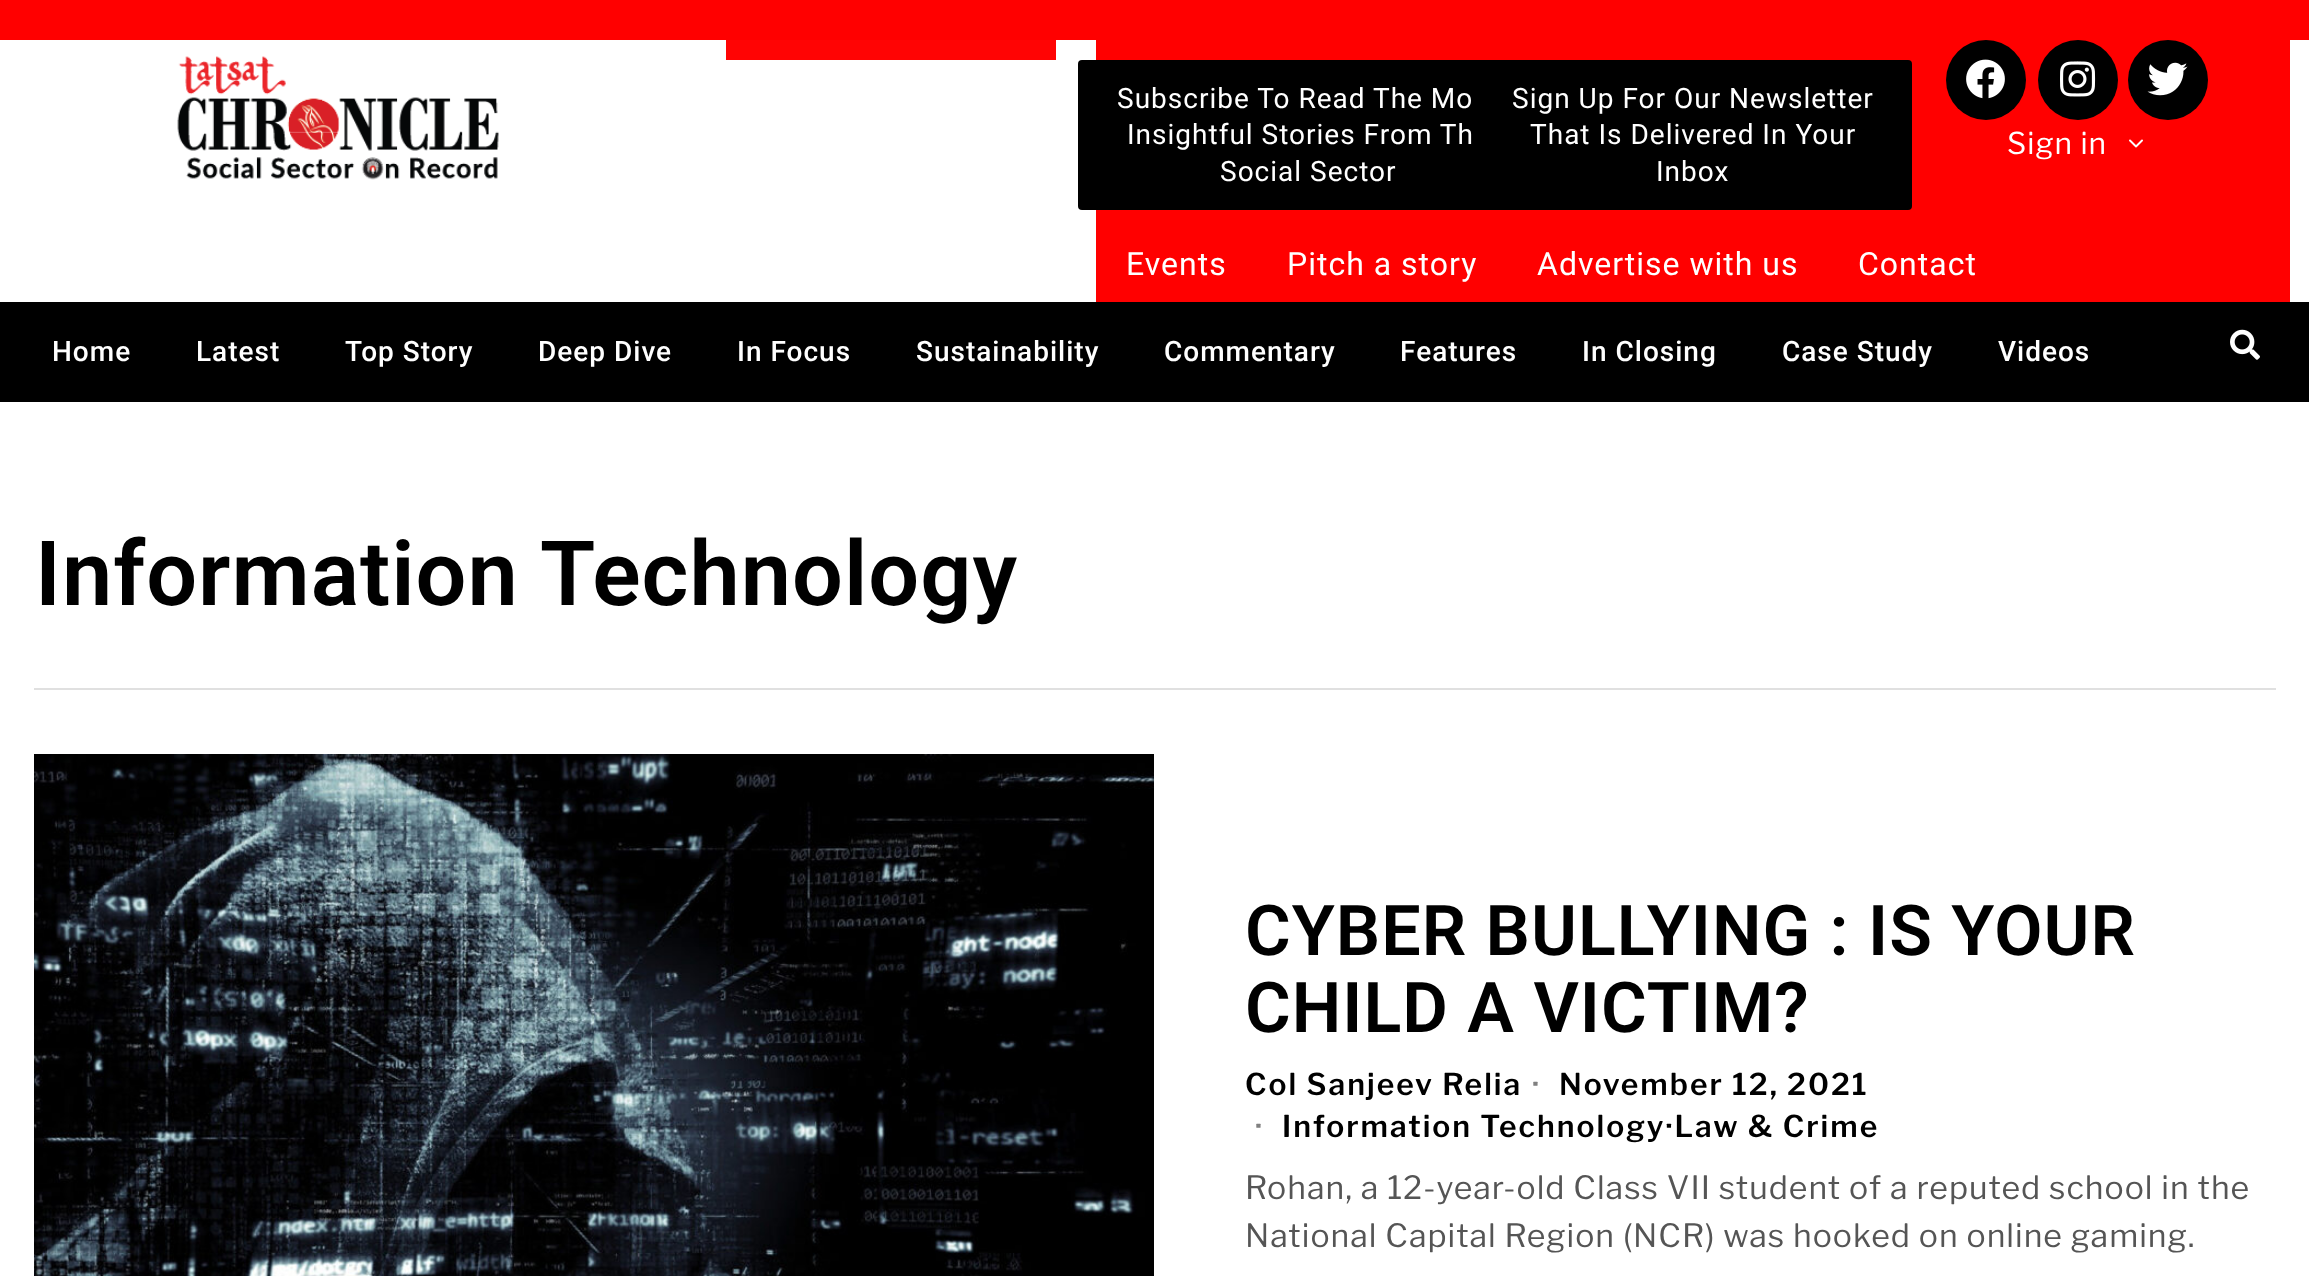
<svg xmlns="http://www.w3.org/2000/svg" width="2309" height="1276">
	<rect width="100%" height="100%" fill="#FFFFFF" />
	<rect x="0" y="0" width="2309" height="40" fill="#FF0000" />
	<rect x="726" y="40" width="330" height="20" fill="#FF0404" />
	<image x="177" y="56" width="322" height="124" href="assets/img1.png" />
	<rect x="1096" y="40" width="1194" height="262" fill="#FF0000" />
	<rect x="1078" y="60" width="460" height="150" rx="4" fill="#000000" />
	<g font-family="Roboto" font-size="28" letter-spacing="1" fill="#FFFFFF">
		<text x="1117" y="108">Subscribe To Read The Mo</text>
		<text x="1127" y="144">Insightful Stories From Th</text>
		<text x="1220" y="181">Social Sector</text>
	</g>
	<rect x="1472" y="60" width="440" height="150" rx="4" fill="#000000" />
	<g font-family="Roboto" font-size="28" letter-spacing="1" fill="#FFFFFF">
		<text x="1512" y="108">Sign Up For Our Newsletter</text>
		<text x="1530" y="144">That Is Delivered In Your</text>
		<text x="1656" y="181">Inbox</text>
	</g>
	<circle cx="1986" cy="80" r="40" fill="#000000" />
	<image x="1966" y="59" width="39" height="40" href="assets/img2.png" />
	<circle cx="2078" cy="80" r="40" fill="#000000" />
	<image x="2060" y="61" width="36" height="36" href="assets/img3.png" />
	<circle cx="2168" cy="80" r="40" fill="#000000" />
	<image x="2147" y="62" width="41" height="34" href="assets/img4.png" />
	<text x="2007" y="154" font-family="Libre Franklin" font-size="30" letter-spacing="1" fill="#FFFFFF">Sign in</text>
	<image x="2129" y="139" width="14" height="9" href="assets/img5.png" />
	<g font-family="Roboto" font-size="32" letter-spacing="1" fill="#FFFFFF">
		<text x="1126" y="275">Events</text>
		<text x="1287" y="275">Pitch a story</text>
		<text x="1537" y="275">Advertise with us</text>
		<text x="1858" y="275">Contact</text>
	</g>
	<rect x="0" y="302" width="2309" height="100" fill="#000000" />
	<g font-family="Roboto" font-size="28" font-weight="500" letter-spacing="1" fill="#FFFFFF">
		<text x="52" y="361">Home</text>
		<text x="196" y="361">Latest</text>
		<text x="345" y="361">Top Story</text>
		<text x="538" y="361">Deep Dive</text>
		<text x="737" y="361">In Focus</text>
		<text x="916" y="361">Sustainability</text>
		<text x="1164" y="361">Commentary</text>
		<text x="1400" y="361">Features</text>
		<text x="1582" y="361">In Closing</text>
		<text x="1782" y="361">Case Study</text>
		<text x="1998" y="361">Videos</text>
	</g>
	<image x="2230" y="329" width="30" height="31" href="assets/img6.png" />
	<rect x="34" y="688" width="2242" height="2" fill="#E0E0E0" />
	<text x="35" y="605" font-family="Roboto" font-size="90" font-weight="600" letter-spacing="1" fill="#000000">Information Technology</text>
	<image x="34" y="754" width="1120" height="522" href="assets/img7.png" />
	<g font-family="Roboto" font-size="70" font-weight="600" letter-spacing="1" fill="#000000">
		<text x="1245" y="955">CYBER BULLYING : IS YOUR</text>
		<text x="1245" y="1032">CHILD A VICTIM?</text>
	</g>
	<text x="1245" y="1095" font-family="Libre Franklin" font-size="30" font-weight="600" letter-spacing="2" fill="#000000">Col Sanjeev Relia</text>
	<text x="1532" y="1095" font-family="Libre Franklin" font-size="30" font-weight="600" letter-spacing="2" fill="#808080">·</text>
	<text x="1559" y="1095" font-family="Libre Franklin" font-size="30" font-weight="600" letter-spacing="2" fill="#000000">November 12, 2021</text>
	<text x="1255" y="1137" font-family="Libre Franklin" font-size="30" font-weight="600" letter-spacing="2" fill="#808080">·</text>
	<text x="1282" y="1137" font-family="Libre Franklin" font-size="30" font-weight="600" letter-spacing="2" fill="#000000">Information Technology·Law &amp; Crime</text>
	<g font-family="Libre Franklin" font-size="32" letter-spacing="1" fill="#555555">
		<text x="1245" y="1199">Rohan, a 12-year-old Class VII student of a reputed school in the</text>
		<text x="1245" y="1247">National Capital Region (NCR) was hooked on online gaming.</text>
	</g>
</svg>
